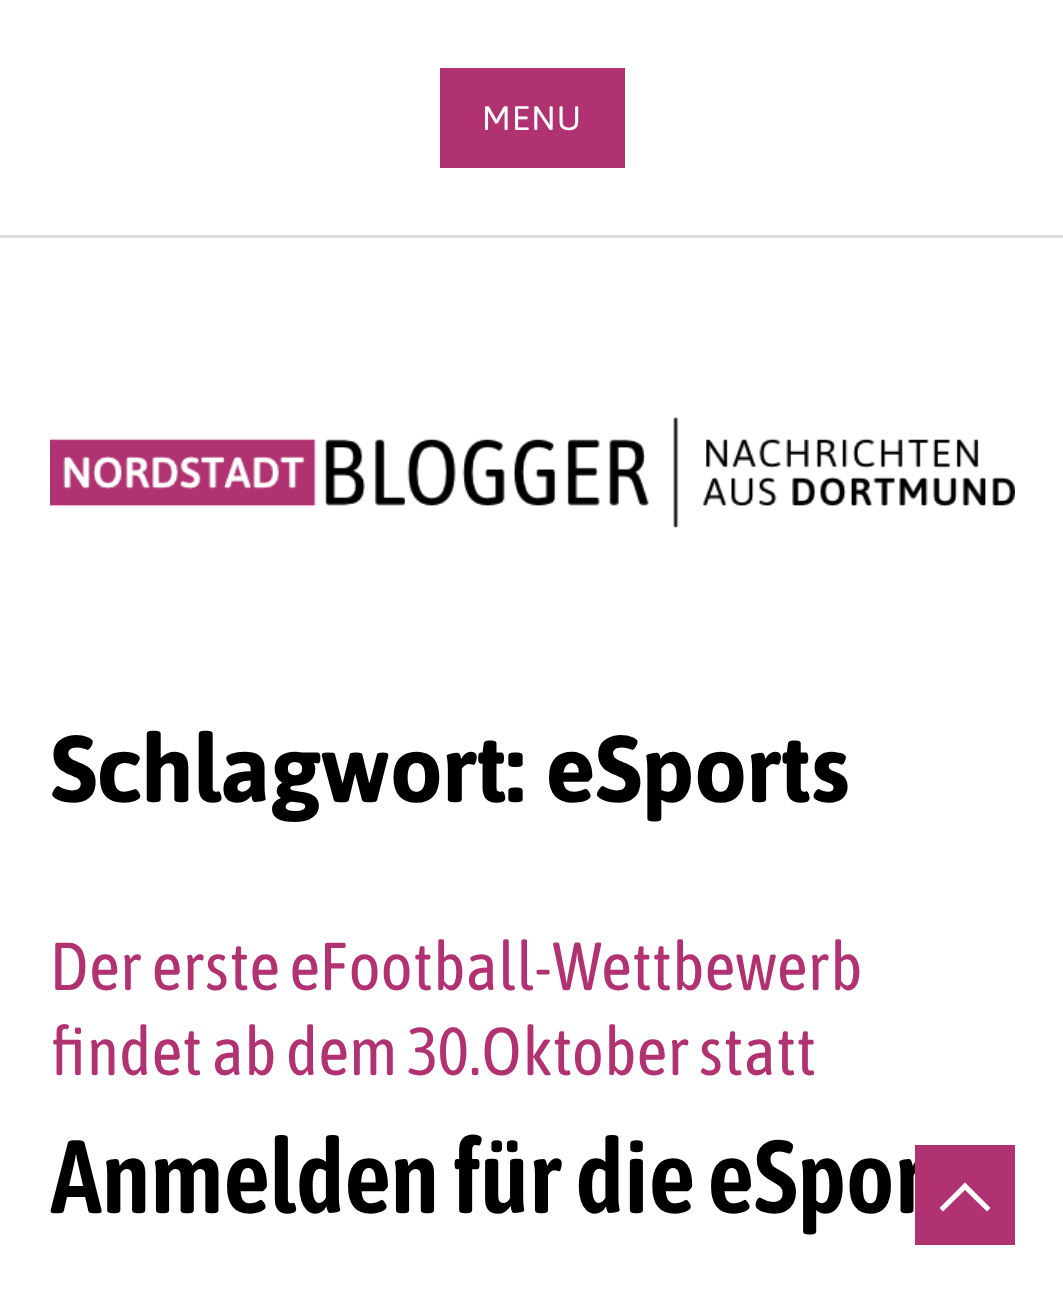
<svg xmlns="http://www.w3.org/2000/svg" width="1063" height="1295">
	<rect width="100%" height="100%" fill="#FFFFFF" />
	<rect x="0" y="235" width="1063" height="3" fill="#DDDDDD" />
	<rect x="440" y="68" width="185" height="100" fill="#B13271" />
	<text x="482" y="130" font-family="Asap" font-size="34" letter-spacing="1" fill="#FFFFFF">MENU</text>
	<image x="50" y="417" width="965" height="111" href="assets/img1.png" />
	<text x="50" y="802" font-family="Asap" font-size="94.5" font-weight="700" letter-spacing="-1.25" fill="#000000">Schlagwort: eSports</text>
	<g font-family="Asap Condensed" font-size="67.5" fill="#B13271">
		<text x="50" y="990">Der erste eFootball-Wettbewerb</text>
		<text x="50" y="1075">findet ab dem 30.Oktober statt</text>
	</g>
	<text x="50" y="1213" font-family="Asap Condensed" font-size="103.5" font-weight="600" letter-spacing="-1.25" fill="#000000">Anmelden für die eSpor</text>
	<rect x="915" y="1145" width="100" height="100" fill="#B13271" />
	<path d="M965 1182.5L990.5 1208L987 1211.5L961.5 1186.5Z" fill="#FFFFFF" />
	<path d="M965 1182.5L968.5 1186.5L943 1211.5L939.5 1208Z" fill="#FFFFFF" />
</svg>
